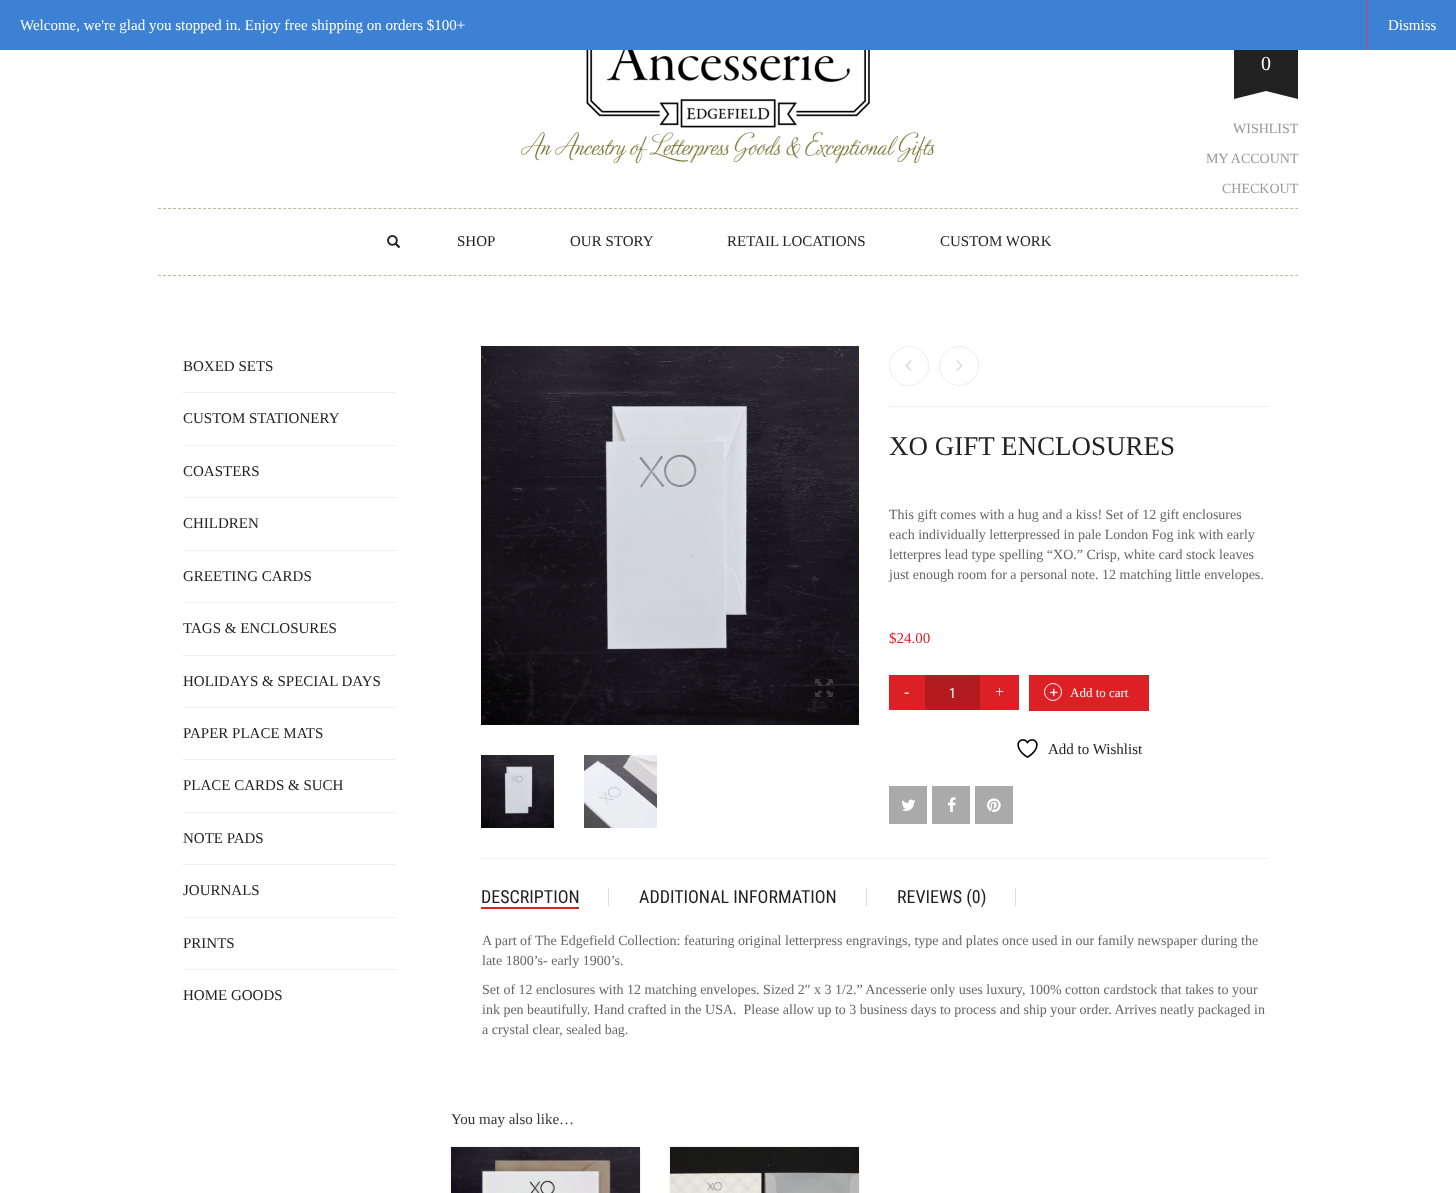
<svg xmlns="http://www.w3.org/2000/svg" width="1456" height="1193">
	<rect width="100%" height="100%" fill="#FFFFFF" />
	<rect x="0" y="0" width="1456" height="50" fill="#3D81D4" />
	<text x="20" y="30" font-family="Liberation Serif" font-size="15" fill="#FFFFFF">Welcome, we're glad you stopped in. Enjoy free shipping on orders $100+</text>
	<rect x="1367" y="0" width="1" height="50" fill="#E44147" />
	<text x="1388" y="30" font-family="Liberation Serif" font-size="15" fill="#FFFFFF">Dismiss</text>
	<image x="521" y="50" width="413" height="113" href="assets/img1.png" />
	<rect x="1234" y="50" width="64" height="41" fill="#222222" />
	<text x="1261" y="70" font-family="Liberation Serif" font-size="20" fill="#FFFFFF">0</text>
	<path d="M1298 83V99L1266 91Z" fill="#222222" />
	<path d="M1234 99V83L1266 91Z" fill="#222222" />
	<path d="M158 208.5H1298" fill="none" stroke="#BBBA9A" stroke-dasharray="3 2.01" />
	<path d="M158 275.5H1298" fill="none" stroke="#BBBA9A" stroke-dasharray="3 2.01" />
	<g font-family="Liberation Serif" font-size="14" fill="#999999">
		<text x="1233" y="133">WISHLIST</text>
		<text x="1206" y="163">MY ACCOUNT</text>
		<text x="1222" y="193">CHECKOUT</text>
	</g>
	<image x="387" y="235" width="14" height="13" href="assets/img2.png" />
	<g font-family="Liberation Serif" font-size="15" fill="#222222">
		<text x="457" y="246">SHOP</text>
		<text x="570" y="246">OUR STORY</text>
		<text x="727" y="246">RETAIL LOCATIONS</text>
		<text x="940" y="246">CUSTOM WORK</text>
	</g>
	<rect x="183" y="392" width="213" height="1" fill="#EEEEEE" />
	<text x="183" y="371" font-family="Liberation Serif" font-size="15" fill="#222222">BOXED SETS</text>
	<rect x="183" y="445" width="213" height="1" fill="#EEEEEE" />
	<text x="183" y="423" font-family="Liberation Serif" font-size="15" fill="#222222">CUSTOM STATIONERY</text>
	<rect x="183" y="497" width="213" height="1" fill="#EEEEEE" />
	<text x="183" y="476" font-family="Liberation Serif" font-size="15" fill="#222222">COASTERS</text>
	<rect x="183" y="550" width="213" height="1" fill="#EEEEEE" />
	<text x="183" y="528" font-family="Liberation Serif" font-size="15" fill="#222222">CHILDREN</text>
	<rect x="183" y="602" width="213" height="1" fill="#EEEEEE" />
	<text x="183" y="581" font-family="Liberation Serif" font-size="15" fill="#222222">GREETING CARDS</text>
	<rect x="183" y="655" width="213" height="1" fill="#EEEEEE" />
	<text x="183" y="633" font-family="Liberation Serif" font-size="15" fill="#222222">TAGS &amp; ENCLOSURES</text>
	<rect x="183" y="707" width="213" height="1" fill="#EEEEEE" />
	<text x="183" y="686" font-family="Liberation Serif" font-size="15" fill="#222222">HOLIDAYS &amp; SPECIAL DAYS</text>
	<rect x="183" y="759" width="213" height="1" fill="#EEEEEE" />
	<text x="183" y="738" font-family="Liberation Serif" font-size="15" fill="#222222">PAPER PLACE MATS</text>
	<rect x="183" y="812" width="213" height="1" fill="#EEEEEE" />
	<text x="183" y="790" font-family="Liberation Serif" font-size="15" fill="#222222">PLACE CARDS &amp; SUCH</text>
	<rect x="183" y="864" width="213" height="1" fill="#EEEEEE" />
	<text x="183" y="843" font-family="Liberation Serif" font-size="15" fill="#222222">NOTE PADS</text>
	<rect x="183" y="917" width="213" height="1" fill="#EEEEEE" />
	<text x="183" y="895" font-family="Liberation Serif" font-size="15" fill="#222222">JOURNALS</text>
	<rect x="183" y="969" width="213" height="1" fill="#EEEEEE" />
	<g font-family="Liberation Serif" font-size="15" fill="#222222">
		<text x="183" y="948">PRINTS</text>
		<text x="183" y="1000">HOME GOODS</text>
	</g>
	<image x="481" y="346" width="378" height="379" href="assets/img3.png" />
	<image x="815" y="679" width="18" height="18" href="assets/img4.png" />
	<image x="481" y="755" width="73" height="73" href="assets/img5.png" />
	<image x="584" y="755" width="73" height="73" href="assets/img6.png" />
	<rect x="889" y="406" width="379" height="1" fill="#EEEEEE" />
	<circle cx="909" cy="366" r="19.5" fill="none" stroke="#EEEEEE" />
	<image x="905" y="360" width="7" height="11" href="assets/img7.png" />
	<circle cx="959" cy="366" r="19.5" fill="none" stroke="#EEEEEE" />
	<image x="956" y="360" width="7" height="11" href="assets/img8.png" />
	<text x="889" y="455" font-family="Liberation Serif" font-size="27" fill="#222222">XO GIFT ENCLOSURES</text>
	<g font-family="Liberation Serif" font-size="14" fill="#666666">
		<text x="889" y="519">This gift comes with a hug and a kiss! Set of 12 gift enclosures</text>
		<text x="889" y="539">each individually letterpressed in pale London Fog ink with early</text>
		<text x="889" y="559">letterpres lead type spelling “XO.” Crisp, white card stock leaves</text>
		<text x="889" y="579">just enough room for a personal note. 12 matching little envelopes.</text>
	</g>
	<text x="889" y="643" font-family="Liberation Serif" font-size="15" fill="#DD1F26">$24.00</text>
	<rect x="889" y="675" width="36" height="35" fill="#DD1F26" />
	<text x="904" y="697" font-family="Liberation Serif" font-size="16" fill="#FFFFFF">-</text>
	<rect x="925" y="675" width="55" height="35" fill="#B31B21" />
	<text x="949" y="698" font-family="Roboto Condensed" font-size="14" fill="#FFFFFF">1</text>
	<rect x="980" y="675" width="39" height="35" fill="#DD1F26" />
	<text x="995" y="697" font-family="Liberation Serif" font-size="16" fill="#FFFFFF">+</text>
	<rect x="1029" y="675" width="120" height="36" fill="#DD1F26" />
	<circle cx="1053" cy="692" r="8.5" fill="none" stroke="#FFFFFF" />
	<image x="1050" y="688" width="8" height="9" href="assets/img9.png" />
	<text x="1070" y="697" font-family="Liberation Serif" font-size="13" fill="#FFFFFF">Add to cart</text>
	<image x="1017" y="739" width="21" height="19" href="assets/img10.png" />
	<text x="1048" y="754" font-family="Liberation Serif" font-size="15" fill="#222222">Add to Wishlist</text>
	<rect x="889" y="786" width="38" height="38" fill="#AAAAAA" />
	<image x="901" y="799" width="15" height="12" href="assets/img11.png" />
	<rect x="932" y="786" width="38" height="38" fill="#AAAAAA" />
	<image x="947" y="797" width="9" height="16" href="assets/img12.png" />
	<rect x="975" y="786" width="38" height="38" fill="#AAAAAA" />
	<image x="987" y="798" width="14" height="15" href="assets/img13.png" />
	<rect x="481" y="858" width="787" height="1" fill="#EEEEEE" />
	<text x="481" y="903" font-family="Roboto Condensed" font-size="18" fill="#222222">DESCRIPTION</text>
	<rect x="481" y="907" width="98" height="2" fill="#DD1F26" />
	<rect x="608" y="888" width="1" height="18" fill="#DDDDDD" />
	<text x="639" y="903" font-family="Roboto Condensed" font-size="18" fill="#222222">ADDITIONAL INFORMATION</text>
	<rect x="866" y="888" width="1" height="18" fill="#DDDDDD" />
	<text x="897" y="903" font-family="Roboto Condensed" font-size="18" fill="#222222">REVIEWS (0)</text>
	<rect x="1015" y="888" width="1" height="18" fill="#DDDDDD" />
	<g font-family="Liberation Serif" font-size="14" fill="#666666">
		<text x="482" y="945">A part of The Edgefield Collection: featuring original letterpress engravings, type and plates once used in our family newspaper during the</text>
		<text x="482" y="965">late 1800’s- early 1900’s.</text>
		<text x="482" y="994">Set of 12 enclosures with 12 matching envelopes. Sized 2″ x 3 1/2.” Ancesserie only uses luxury, 100% cotton cardstock that takes to your</text>
		<text x="482" y="1014" xml:space="preserve">ink pen beautifully. Hand crafted in the USA.  Please allow up to 3 business days to process and ship your order. Arrives neatly packaged in</text>
		<text x="482" y="1034">a crystal clear, sealed bag.</text>
	</g>
	<text x="451" y="1124" font-family="Liberation Serif" font-size="15" fill="#333333">You may also like…</text>
	<rect x="451" y="1147" width="189" height="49" fill="#CCCCCC" fill-opacity="0.5" filter="blur(1px)" />
	<image x="451" y="1147" width="189" height="46" href="assets/img14.png" />
	<rect x="670" y="1147" width="189" height="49" fill="#CCCCCC" fill-opacity="0.5" filter="blur(1px)" />
	<image x="670" y="1147" width="189" height="46" href="assets/img15.png" />
</svg>
